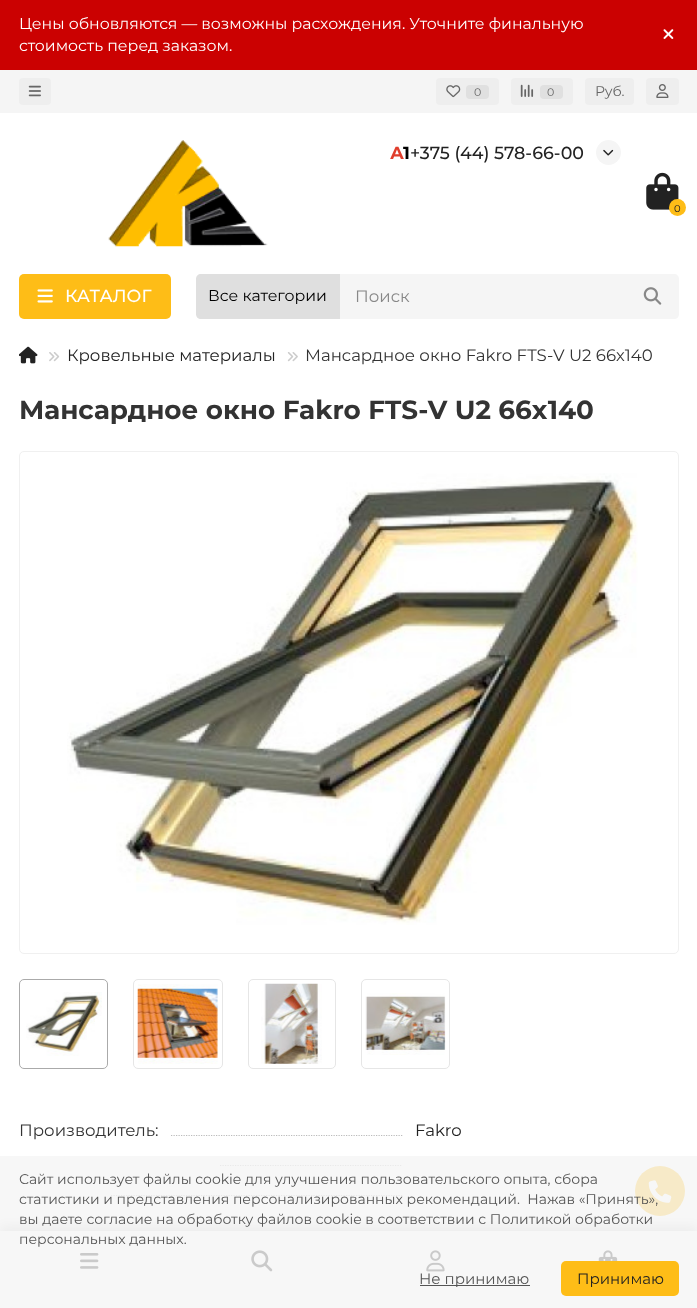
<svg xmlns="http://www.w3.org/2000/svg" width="697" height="1308">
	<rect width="100%" height="100%" fill="#FFFFFF" />
	<rect x="0" y="0" width="697" height="70" fill="#CB0101" />
	<g font-family="Montserrat" font-size="15.75" fill="#FFFFFF">
		<text x="19" y="29">Цены обновляются — возможны расхождения. Уточните финальную</text>
		<text x="19" y="51">стоимость перед заказом.</text>
	</g>
	<image x="663" y="29" width="11" height="10" href="assets/img1.png" />
	<rect x="0" y="70" width="697" height="43" fill="#F5F5F5" />
	<rect x="19" y="78" width="32" height="27" rx="4" fill="#EEEEEE" />
	<image x="28" y="85" width="13" height="12" href="assets/img2.png" />
	<rect x="436" y="78" width="63" height="27" rx="4" fill="#EEEEEE" />
	<image x="446" y="85" width="15" height="13" href="assets/img3.png" />
	<rect x="466" y="85" width="23" height="14" rx="4" fill="#E0E0E0" />
	<text x="474" y="96" font-family="Montserrat" font-size="11" fill="#666666">0</text>
	<rect x="511" y="78" width="62" height="27" rx="4" fill="#EEEEEE" />
	<image x="520" y="84" width="14" height="13" href="assets/img4.png" />
	<rect x="540" y="85" width="23" height="14" rx="4" fill="#E0E0E0" />
	<text x="547" y="96" font-family="Montserrat" font-size="11" fill="#666666">0</text>
	<rect x="585" y="78" width="49" height="27" rx="4" fill="#EEEEEE" />
	<text x="595" y="96" font-family="Montserrat" font-size="14" fill="#666666">Руб.</text>
	<rect x="646" y="78" width="33" height="27" rx="4" fill="#EEEEEE" />
	<image x="656" y="84" width="13" height="14" href="assets/img5.png" />
	<image x="108" y="140" width="160" height="107" href="assets/img6.png" />
	<text x="390" y="159" font-family="Montserrat" font-size="17.5" font-weight="700" fill="#E03E2D">А</text>
	<text x="403" y="159" font-family="Montserrat" font-size="17.5" font-weight="700" fill="#000000">1</text>
	<text x="410" y="159" font-family="Montserrat" font-size="17.5" font-weight="500" fill="#222222">+375 (44) 578-66-00</text>
	<circle cx="608.5" cy="152.5" r="12.5" fill="#F5F5F5" />
	<image x="603" y="149" width="11" height="7" href="assets/img7.png" />
	<image x="646" y="172" width="33" height="38" href="assets/img8.png" />
	<circle cx="677.5" cy="207.5" r="8.5" fill="#FEBD17" />
	<text x="674" y="212" font-family="Montserrat" font-size="10" fill="#222222">0</text>
	<rect x="19" y="274" width="152" height="45" rx="5" fill="#FEBD17" />
	<image x="37" y="289" width="16" height="14" href="assets/img9.png" />
	<text x="65" y="302" font-family="Montserrat" font-size="17.5" font-weight="500" fill="#FFFFFF">КАТАЛОГ</text>
	<path d="M201 274H340V319H201C198 319 196 317 196 314V279C196 276 198 274 201 274Z" fill="#DFDFDF" />
	<text x="208" y="301" font-family="Montserrat" font-size="15.75" fill="#000000">Все категории</text>
	<path d="M340 274H674C677 274 679 276 679 279V314C679 317 677 319 674 319H340Z" fill="#F5F5F5" />
	<text x="355" y="302" font-family="Montserrat" font-size="16.6" fill="#888888">Поиск</text>
	<image x="643" y="287" width="19" height="18" href="assets/img10.png" />
	<image x="19" y="346" width="19" height="18" href="assets/img11.png" />
	<image x="49" y="352" width="11" height="10" href="assets/img12.png" />
	<text x="67" y="361" font-family="Montserrat" font-size="16.6" fill="#222222">Кровельные материалы</text>
	<image x="287" y="352" width="11" height="10" href="assets/img13.png" />
	<text x="305" y="361" font-family="Montserrat" font-size="16.6" fill="#333333">Мансардное окно Fakro FTS-V U2 66х140</text>
	<text x="19" y="419" font-family="Montserrat" font-size="26.25" font-weight="700" fill="#333333">Мансардное окно Fakro FTS-V U2 66х140</text>
	<rect x="19.5" y="451.5" width="659" height="502" rx="4.5" fill="none" stroke="#F0F0F0" />
	<image x="67" y="473" width="571" height="452" href="assets/img14.png" />
	<rect x="19.5" y="979.5" width="88" height="89" rx="4.5" fill="none" stroke="#AAAAAA" />
	<image x="26" y="992" width="76" height="64" href="assets/img15.png" />
	<rect x="133.5" y="979.5" width="89" height="89" rx="4.5" fill="none" stroke="#E6E6E6" />
	<image x="137" y="984" width="81" height="80" href="assets/img16.png" />
	<rect x="248.5" y="979.5" width="87" height="89" rx="4.5" fill="none" stroke="#E6E6E6" />
	<image x="261" y="983" width="61" height="81" href="assets/img17.png" />
	<rect x="361.5" y="979.5" width="88" height="89" rx="4.5" fill="none" stroke="#E6E6E6" />
	<image x="365" y="993" width="81" height="62" href="assets/img18.png" />
	<text x="19" y="1136" font-family="Montserrat" font-size="16.6" fill="#333333">Производитель:</text>
	<path d="M171 1135.5H402.5" fill="none" stroke="#BBBBBB" stroke-width="1.2" stroke-dasharray="1.25 1.25" />
	<text x="415" y="1136" font-family="Montserrat" font-size="16.6" fill="#222222">Fakro</text>
	<path d="M220 1165.5H402.5" fill="none" stroke="#BBBBBB" stroke-width="1.2" stroke-dasharray="1.25 1.25" />
	<path d="M111 1195.5H402.5" fill="none" stroke="#BBBBBB" stroke-width="1.2" stroke-dasharray="1.25 1.25" />
	<rect x="0" y="1226" width="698" height="78" fill="#000000" fill-opacity="0.2" filter="blur(6px)" />
	<circle cx="660" cy="1191" r="25" fill="#FEBD17" />
	<image x="648" y="1180" width="24" height="23" href="assets/img19.png" />
	<rect x="0" y="1231" width="697" height="77" fill="#FFFFFF" />
	<image x="80" y="1253" width="19" height="16" href="assets/img20.png" />
	<image x="251" y="1250" width="22" height="22" href="assets/img21.png" />
	<image x="426" y="1250" width="19" height="22" href="assets/img22.png" />
	<image x="598" y="1250" width="20" height="11" href="assets/img23.png" />
	<rect x="0" y="1156" width="697" height="152" fill="#F5F5F5" fill-opacity="0.8" />
	<g font-family="Montserrat" font-size="14" fill="#555555">
		<text x="19" y="1184">Сайт использует файлы cookie для улучшения пользовательского опыта, сбора</text>
		<text x="19" y="1204" xml:space="preserve">статистики и представления персонализированных рекомендаций.  Нажав «Принять»,</text>
		<text x="19" y="1224">вы даете согласие на обработку файлов cookie в соответствии с Политикой обработки</text>
		<text x="19" y="1244">персональных данных.</text>
	</g>
	<rect x="420" y="1285" width="110" height="1" fill="#555555" />
	<text x="419" y="1284" font-family="Montserrat" font-size="15" fill="#555555">Не принимаю</text>
	<rect x="561" y="1261" width="118" height="35" rx="5" fill="#FEBD17" />
	<text x="577" y="1284" font-family="Montserrat" font-size="15" fill="#222222">Принимаю</text>
</svg>
